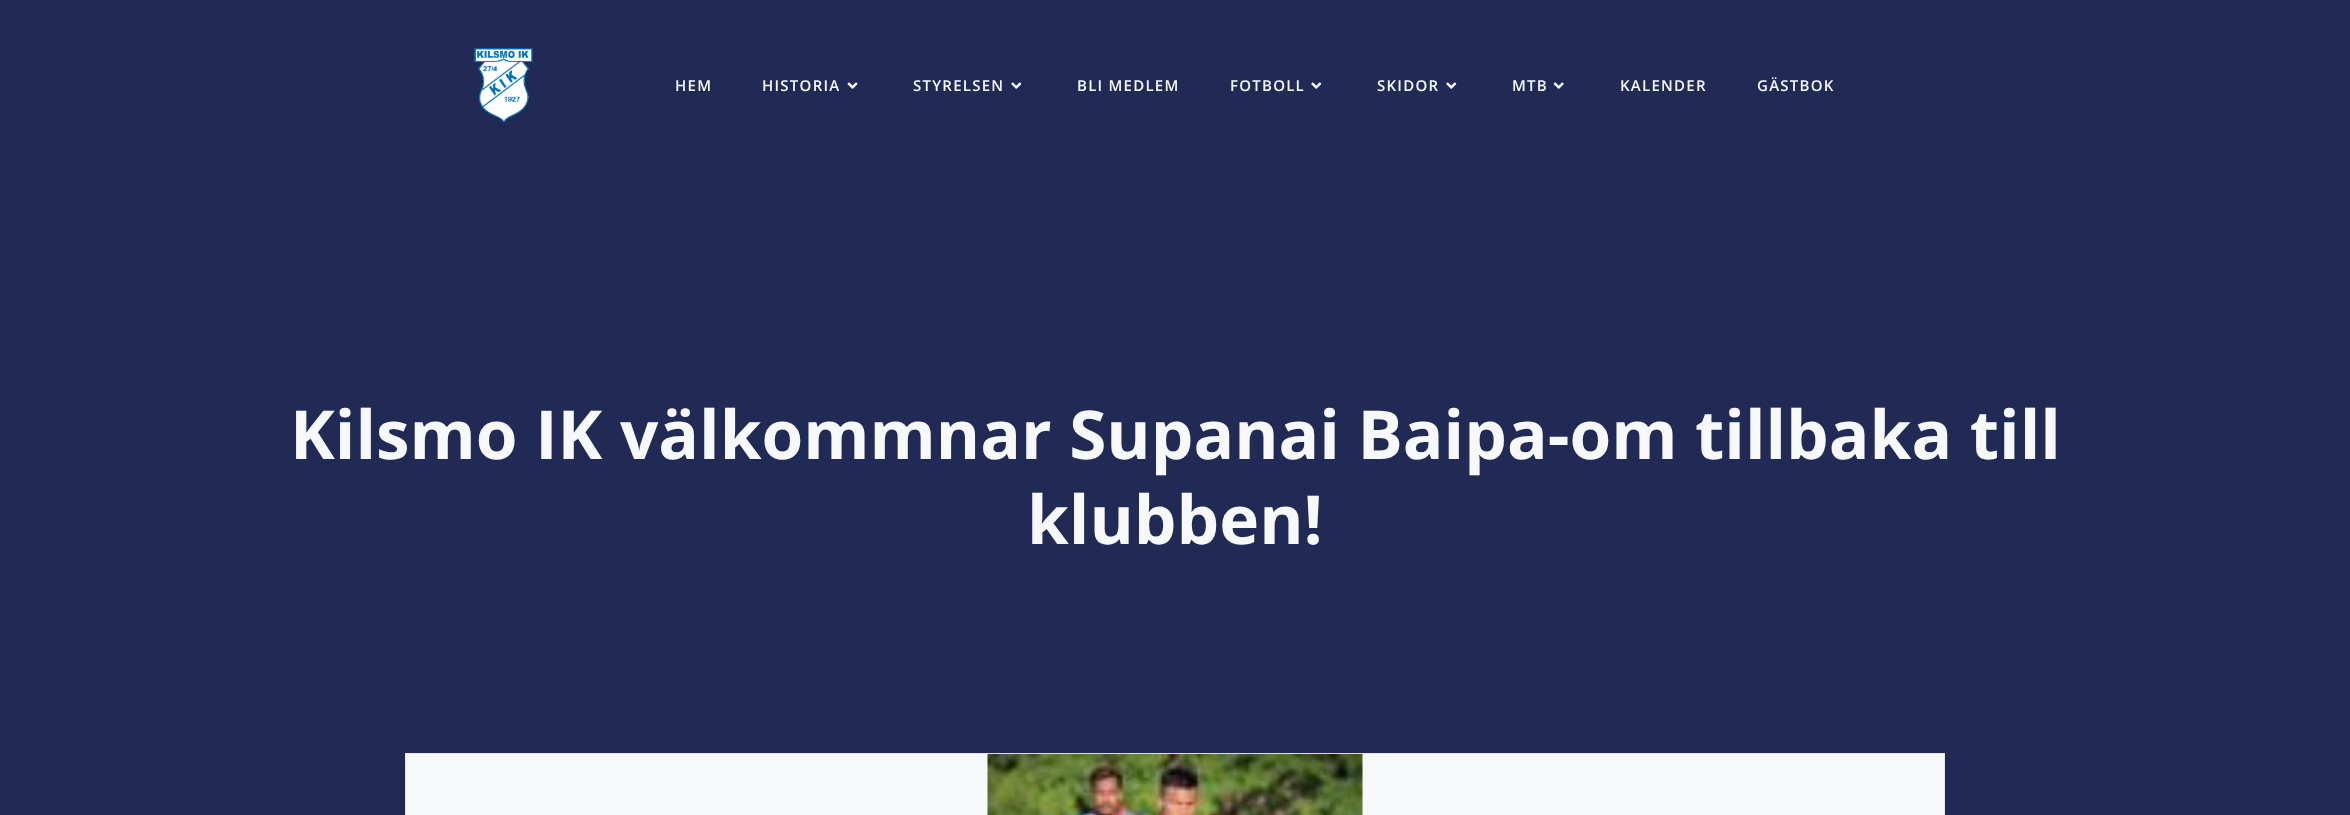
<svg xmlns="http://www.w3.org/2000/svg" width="2350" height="815">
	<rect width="100%" height="100%" fill="#202A54" />
	<image x="474" y="48" width="59" height="75" href="assets/img1.png" />
	<g font-family="Open Sans" font-size="15" font-weight="600" letter-spacing="1.25" fill="#F6F8FA">
		<text x="675" y="91">HEM</text>
		<text x="762" y="91">HISTORIA</text>
	</g>
	<image x="847" y="82" width="11" height="7" href="assets/img2.png" />
	<text x="913" y="91" font-family="Open Sans" font-size="15" font-weight="600" letter-spacing="1.25" fill="#F6F8FA">STYRELSEN</text>
	<image x="1011" y="82" width="11" height="7" href="assets/img3.png" />
	<g font-family="Open Sans" font-size="15" font-weight="600" letter-spacing="1.25" fill="#F6F8FA">
		<text x="1077" y="91">BLI MEDLEM</text>
		<text x="1230" y="91">FOTBOLL</text>
	</g>
	<image x="1311" y="82" width="11" height="7" href="assets/img3.png" />
	<text x="1377" y="91" font-family="Open Sans" font-size="15" font-weight="600" letter-spacing="1.25" fill="#F6F8FA">SKIDOR</text>
	<image x="1446" y="82" width="11" height="7" href="assets/img3.png" />
	<text x="1512" y="91" font-family="Open Sans" font-size="15" font-weight="600" letter-spacing="1.25" fill="#F6F8FA">MTB</text>
	<image x="1553" y="82" width="11" height="7" href="assets/img4.png" />
	<g font-family="Open Sans" font-size="15" font-weight="600" letter-spacing="1.25" fill="#F6F8FA">
		<text x="1620" y="91">KALENDER</text>
		<text x="1757" y="91">GÄSTBOK</text>
	</g>
	<g font-family="Open Sans" font-size="67.5" font-weight="700" fill="#F6F8FA">
		<text x="290" y="459">Kilsmo IK välkommnar Supanai Baipa-om tillbaka till</text>
		<text x="1027" y="544">klubben!</text>
	</g>
	<rect x="406" y="754" width="1538" height="61" fill="#F6F8FA" />
	<rect x="405" y="753" width="1540" height="1" fill="#E6E6E6" />
	<rect x="1944" y="753" width="1" height="62" fill="#E6E6E6" />
	<rect x="405" y="753" width="1" height="62" fill="#E6E6E6" />
	<image x="987" y="753" width="376" height="62" href="assets/img5.png" />
</svg>
